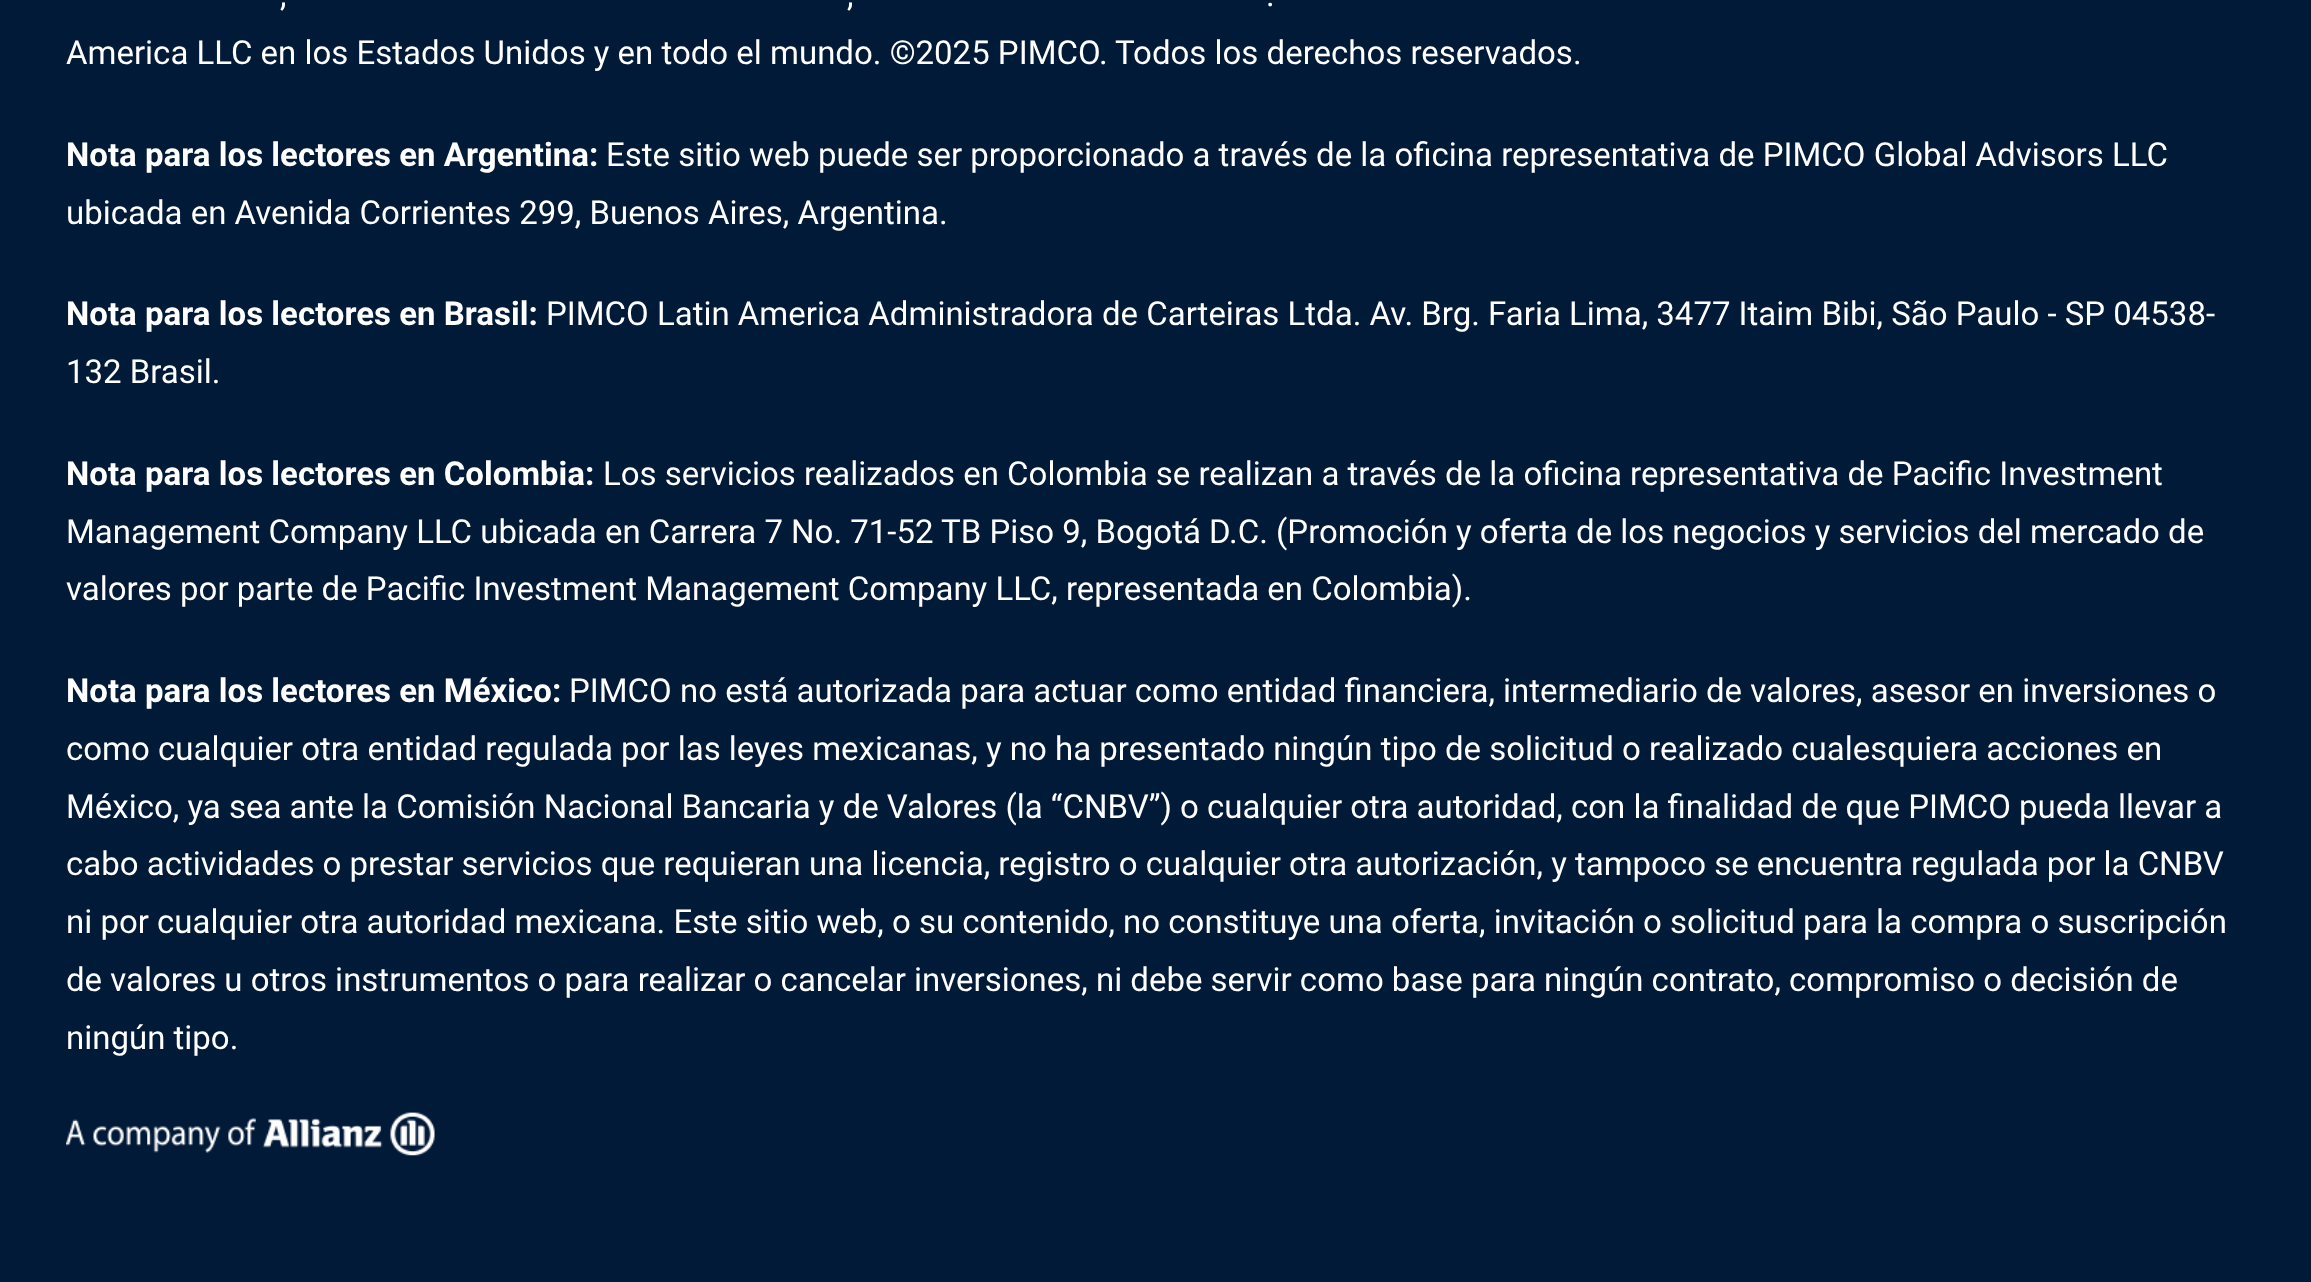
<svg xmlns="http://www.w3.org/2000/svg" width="2311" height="1282">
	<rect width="100%" height="100%" fill="#001A37" />
	<g font-family="Roboto" font-size="33" fill="#FFFFFF">
		<text x="280" y="6">,</text>
		<text x="847" y="6">,</text>
		<text x="1266" y="6">.</text>
		<text x="66" y="64">America LLC en los Estados Unidos y en todo el mundo. ©2025 PIMCO.</text>
		<text x="1115" y="64">Todos los derechos reservados.</text>
	</g>
	<text x="66" y="166" font-family="Roboto" font-size="33" font-weight="700" fill="#FFFFFF">Nota para los lectores en Argentina:</text>
	<g font-family="Roboto" font-size="33" fill="#FFFFFF">
		<text x="606" y="166">Este sitio web puede ser proporcionado a través de la oficina representativa de PIMCO Global Advisors LLC</text>
		<text x="66" y="224">ubicada en Avenida Corrientes 299, Buenos Aires, Argentina.</text>
	</g>
	<text x="66" y="325" font-family="Roboto" font-size="33" font-weight="700" fill="#FFFFFF">Nota para los lectores en Brasil:</text>
	<g font-family="Roboto" font-size="33" fill="#FFFFFF">
		<text x="546" y="325">PIMCO Latin America Administradora de Carteiras Ltda. Av. Brg. Faria Lima, 3477 Itaim Bibi, São Paulo - SP 04538-</text>
		<text x="66" y="383">132 Brasil.</text>
	</g>
	<text x="66" y="485" font-family="Roboto" font-size="33" font-weight="700" fill="#FFFFFF">Nota para los lectores en Colombia:</text>
	<g font-family="Roboto" font-size="33" fill="#FFFFFF">
		<text x="603" y="485">Los servicios realizados en Colombia se realizan a través de la oficina representativa de Pacific Investment</text>
		<text x="66" y="543">Management Company LLC ubicada en Carrera 7 No. 71-52 TB Piso 9, Bogotá D.C. (Promoción y oferta de los negocios y servicios del mercado de</text>
		<text x="66" y="600">valores por parte de Pacific Investment Management Company LLC, representada en Colombia).</text>
	</g>
	<text x="66" y="702" font-family="Roboto" font-size="33" font-weight="700" fill="#FFFFFF">Nota para los lectores en México:</text>
	<g font-family="Roboto" font-size="33" fill="#FFFFFF">
		<text x="569" y="702">PIMCO no está autorizada para actuar como entidad financiera, intermediario de valores, asesor en inversiones o</text>
		<text x="66" y="760">como cualquier otra entidad regulada por las leyes mexicanas, y no ha presentado ningún tipo de solicitud o realizado cualesquiera acciones en</text>
		<text x="66" y="818">México, ya sea ante la Comisión Nacional Bancaria y de Valores (la “CNBV”) o cualquier otra autoridad, con la finalidad de que PIMCO pueda llevar a</text>
		<text x="66" y="875">cabo actividades o prestar servicios que requieran una licencia, registro o cualquier otra autorización, y tampoco se encuentra regulada por la CNBV</text>
		<text x="66" y="933">ni por cualquier otra autoridad mexicana. Este sitio web, o su contenido, no constituye una oferta, invitación o solicitud para la compra o suscripción</text>
		<text x="66" y="991">de valores u otros instrumentos o para realizar o cancelar inversiones, ni debe servir como base para ningún contrato, compromiso o decisión de</text>
		<text x="66" y="1049">ningún tipo.</text>
	</g>
	<image x="66" y="1112" width="369" height="44" href="assets/img1.png" />
</svg>
